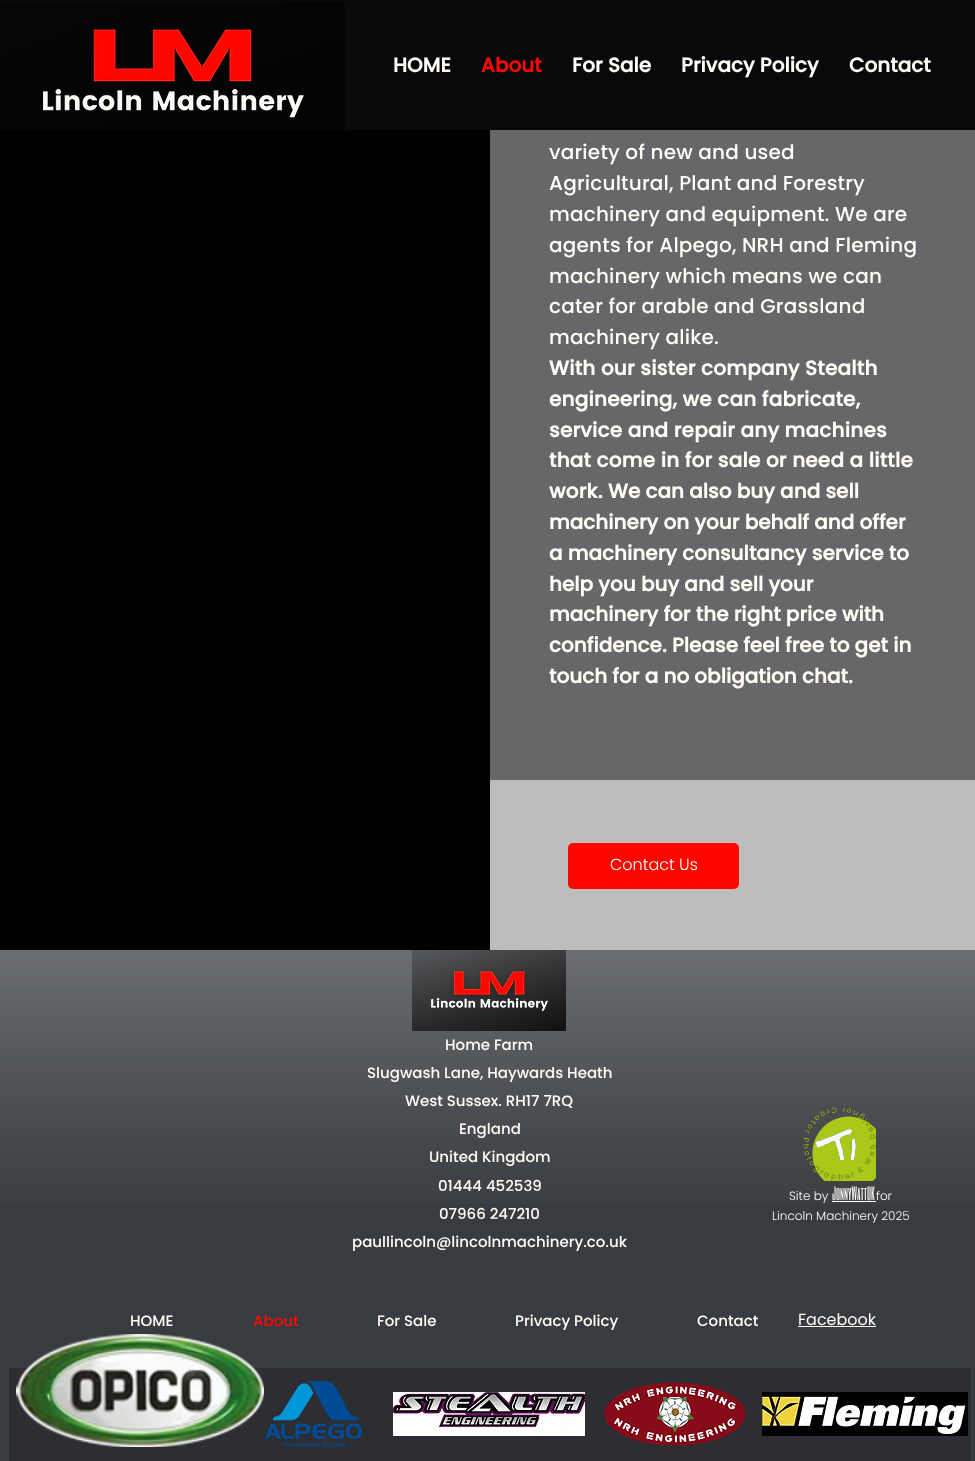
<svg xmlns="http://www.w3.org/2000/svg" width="975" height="1461">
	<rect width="100%" height="100%" fill="#000000" />
	<rect x="0" y="0" width="975" height="130" fill="#09090B" />
	<image x="0" y="2" width="345" height="127" href="assets/img1.png" />
	<text x="393" y="72" font-family="Poppins" font-size="20" font-weight="700" fill="#FFFCF6">HOME</text>
	<text x="481" y="72" font-family="Poppins" font-size="20" font-weight="700" fill="#FF0700">About</text>
	<g font-family="Poppins" font-size="20" font-weight="700" fill="#FFFCF6">
		<text x="572" y="72">For Sale</text>
		<text x="681" y="72">Privacy Policy</text>
		<text x="849" y="72">Contact</text>
	</g>
	<rect x="490" y="130" width="485" height="650" fill="#676769" />
	<g font-family="Poppins" font-size="20" font-weight="500" letter-spacing="0.2" fill="#FFFCF6">
		<text x="549" y="159">variety of new and used</text>
		<text x="549" y="190">Agricultural, Plant and Forestry</text>
		<text x="549" y="221">machinery and equipment. We are</text>
		<text x="549" y="252">agents for Alpego, NRH and Fleming</text>
		<text x="549" y="283">machinery which means we can</text>
		<text x="549" y="313">cater for arable and Grassland</text>
		<text x="549" y="344">machinery alike.</text>
	</g>
	<g font-family="Poppins" font-size="20" font-weight="700" letter-spacing="0.2" fill="#FFFCF6">
		<text x="549" y="375">With our sister company Stealth</text>
		<text x="549" y="406">engineering, we can fabricate,</text>
		<text x="549" y="437">service and repair any machines</text>
		<text x="549" y="467">that come in for sale or need a little</text>
		<text x="549" y="498">work.</text>
	</g>
	<g font-family="Poppins" font-size="20" font-weight="700" fill="#FFFCF6">
		<text x="608" y="498">We can also buy and sell</text>
		<text x="549" y="529">machinery on your behalf and offer</text>
		<text x="549" y="560">a machinery consultancy service to</text>
		<text x="549" y="591">help you buy and sell your</text>
		<text x="549" y="621">machinery for the right price with</text>
		<text x="549" y="652">confidence. Please feel free to get in</text>
		<text x="549" y="683">touch for a no obligation chat.</text>
	</g>
	<rect x="490" y="780" width="485" height="170" fill="#BDBDBC" />
	<rect x="568" y="843" width="171" height="46" rx="5" fill="#FF0700" />
	<text x="610" y="870" font-family="Poppins" font-size="16" font-weight="300" fill="#FFFFFF">Contact Us</text>
	<rect x="0" y="950" width="975" height="511" fill="#383B3F" />
	<image x="0" y="950" width="975" height="254" href="assets/img2.png" />
	<image x="412" y="950" width="154" height="81" href="assets/img3.png" />
	<g font-family="Poppins" font-size="15" font-weight="500" fill="#FFFCF6">
		<text x="445" y="1050">Home Farm</text>
		<text x="367" y="1078">Slugwash Lane, Haywards Heath</text>
		<text x="405" y="1106">West Sussex. RH17 7RQ</text>
		<text x="459" y="1134">England</text>
		<text x="429" y="1162">United Kingdom</text>
		<text x="438" y="1191">01444 452539</text>
		<text x="439" y="1219">07966 247210</text>
		<text x="352" y="1247">paullincoln@lincolnmachinery.co.uk</text>
	</g>
	<image x="803" y="1107" width="73" height="74" href="assets/img4.png" />
	<text x="789" y="1200" font-family="Poppins" font-size="12" font-weight="300" fill="#FFFCF6">Site by</text>
	<rect x="832" y="1201" width="44" height="1" fill="#FFFCF6" />
	<text x="832" y="1200" font-family="Six Caps" font-size="16" fill="#FFFCF6">JonnyWattUK</text>
	<g font-family="Poppins" font-size="12" font-weight="300" fill="#FFFCF6">
		<text x="876" y="1200">for</text>
		<text x="772" y="1220">Lincoln Machinery 2025</text>
	</g>
	<text x="130" y="1326" font-family="Poppins" font-size="15" font-weight="500" fill="#FFFCF6">HOME</text>
	<text x="253" y="1326" font-family="Poppins" font-size="15" font-weight="500" fill="#FF0700">About</text>
	<g font-family="Poppins" font-size="15" font-weight="500" fill="#FFFCF6">
		<text x="377" y="1326">For Sale</text>
		<text x="515" y="1326">Privacy Policy</text>
		<text x="697" y="1326">Contact</text>
	</g>
	<text x="798" y="1325" font-family="Poppins" font-size="16" fill="#FFFCF6">Facebook</text>
	<rect x="798" y="1326" width="78" height="1" fill="#FFFCF6" />
	<rect x="9" y="1368" width="962" height="93" fill="#2D2E34" />
	<image x="16" y="1334" width="248" height="113" href="assets/img5.png" />
	<image x="265" y="1381" width="97" height="66" href="assets/img6.png" />
	<image x="393" y="1392" width="192" height="44" href="assets/img7.png" />
	<image x="604" y="1382" width="142" height="64" href="assets/img8.png" />
	<image x="762" y="1392" width="206" height="44" href="assets/img9.png" />
</svg>
